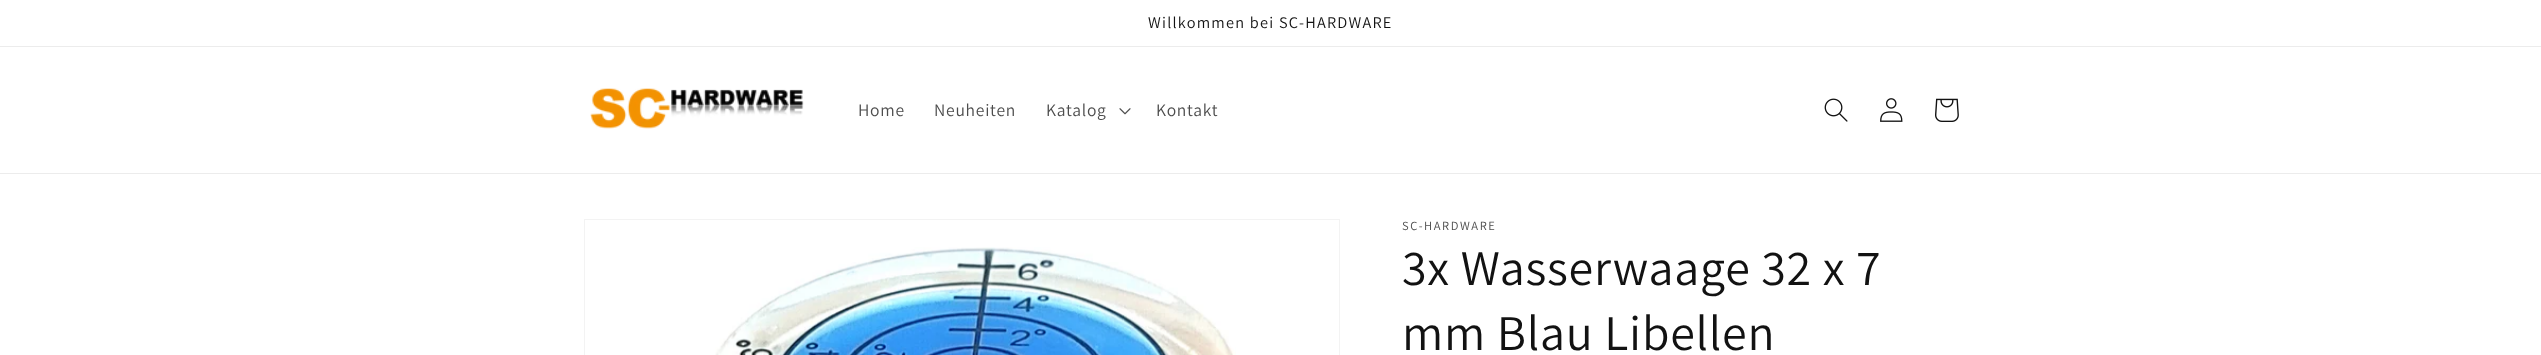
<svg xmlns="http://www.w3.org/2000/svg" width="2541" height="355">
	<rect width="100%" height="100%" fill="#FFFFFF" />
	<rect x="0" y="46" width="2541" height="1" fill="#ECECEC" />
	<text x="1148" y="28" font-family="Assistant" font-size="16.25" letter-spacing="1.25" fill="#121212">Willkommen bei SC-HARDWARE</text>
	<rect x="0" y="173" width="2541" height="1" fill="#ECECEC" />
	<image x="590" y="88" width="214" height="41" href="assets/img1.png" />
	<g font-family="Assistant" font-size="17.5" letter-spacing="0.75" fill="#4D4D4D">
		<text x="858" y="116">Home</text>
		<text x="934" y="116">Neuheiten</text>
		<text x="1046" y="116">Katalog</text>
	</g>
	<image x="1119" y="108" width="12" height="7" href="assets/img2.png" />
	<text x="1156" y="116" font-family="Assistant" font-size="17.5" letter-spacing="0.75" fill="#4D4D4D">Kontakt</text>
	<image x="1824" y="98" width="24" height="24" href="assets/img3.png" />
	<image x="1880" y="98" width="23" height="24" href="assets/img4.png" />
	<image x="1935" y="98" width="24" height="24" href="assets/img5.png" />
	<rect x="584.5" y="219.5" width="755" height="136" fill="none" stroke="#F3F3F3" />
	<image x="715" y="247" width="521" height="108" href="assets/img6.png" />
	<text x="1402" y="230" font-family="Assistant" font-size="12.5" letter-spacing="1.6" fill="#4D4D4D">SC-HARDWARE</text>
	<g font-family="Assistant" font-size="50" letter-spacing="0.75" fill="#121212">
		<text x="1402" y="285">3x Wasserwaage 32 x 7</text>
		<text x="1402" y="350">mm Blau Libellen</text>
	</g>
</svg>
